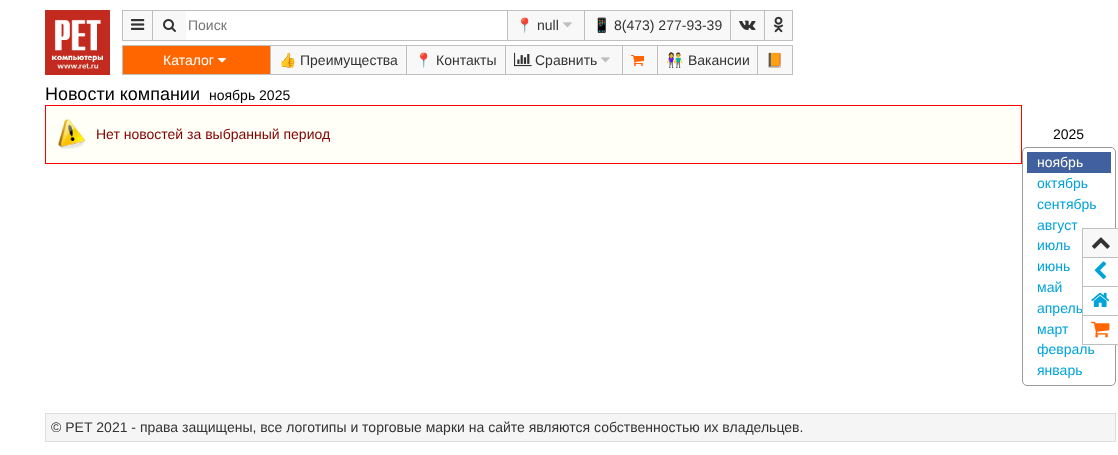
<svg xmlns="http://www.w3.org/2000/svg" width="1118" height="455">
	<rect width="100%" height="100%" fill="#FFFFFF" />
	<image x="45" y="10" width="65" height="65" href="assets/img1.png" />
	<rect x="122.5" y="10.5" width="30" height="30" fill="#F8F8F8" stroke="#BFBFBF" />
	<image x="131" y="19" width="14" height="11" href="assets/img2.png" />
	<rect x="152.5" y="10.5" width="355" height="30" fill="none" stroke="#BFBFBF" />
	<rect x="153" y="11" width="33" height="29" fill="#F8F8F8" />
	<image x="163" y="19" width="13" height="13" href="assets/img3.png" />
	<text x="188" y="30" font-family="Liberation Sans" font-size="14" fill="#757575">Поиск</text>
	<rect x="507.5" y="10.5" width="77" height="30" fill="#F8F8F8" stroke="#BFBFBF" />
	<text x="516" y="30" font-family="Noto Color Emoji" font-size="14" fill="#333333">📍</text>
	<text x="537" y="30" font-family="Liberation Sans" font-size="14" fill="#333333">null</text>
	<image x="563" y="22" width="9" height="6" href="assets/img4.png" />
	<rect x="584.5" y="10.5" width="146" height="30" fill="#F8F8F8" stroke="#BFBFBF" />
	<text x="593" y="30" font-family="Noto Color Emoji" font-size="14" fill="#333333">📱</text>
	<text x="614" y="30" font-family="Liberation Sans" font-size="14" fill="#333333">8(473) 277-93-39</text>
	<rect x="730.5" y="10.5" width="34" height="30" fill="#F8F8F8" stroke="#BFBFBF" />
	<image x="739" y="20" width="17" height="10" href="assets/img5.png" />
	<rect x="764.5" y="10.5" width="28" height="30" fill="#F8F8F8" stroke="#BFBFBF" />
	<image x="773" y="16" width="11" height="17" href="assets/img6.png" />
	<rect x="122.5" y="45.5" width="148" height="29" fill="#FF6600" stroke="#BFBFBF" />
	<text x="163" y="65" font-family="Liberation Sans" font-size="14" fill="#FFFFFF">Каталог</text>
	<image x="218" y="58" width="8" height="5" href="assets/img7.png" />
	<rect x="270.5" y="45.5" width="136" height="29" fill="#F8F8F8" stroke="#BFBFBF" />
	<text x="279" y="65" font-family="Noto Color Emoji" font-size="14" fill="#333333">👍</text>
	<text x="300" y="65" font-family="Liberation Sans" font-size="14" fill="#333333">Преимущества</text>
	<rect x="406.5" y="45.5" width="99" height="29" fill="#F8F8F8" stroke="#BFBFBF" />
	<text x="415" y="65" font-family="Noto Color Emoji" font-size="14" fill="#333333">📍</text>
	<text x="436" y="65" font-family="Liberation Sans" font-size="14" fill="#333333">Контакты</text>
	<rect x="505.5" y="45.5" width="117" height="29" fill="#F8F8F8" stroke="#BFBFBF" />
	<image x="514" y="52" width="18" height="15" href="assets/img8.png" />
	<text x="535" y="65" font-family="Liberation Sans" font-size="14" fill="#333333">Сравнить</text>
	<image x="601" y="57" width="9" height="6" href="assets/img4.png" />
	<rect x="622.5" y="45.5" width="35" height="29" fill="#F8F8F8" stroke="#BFBFBF" />
	<image x="631" y="55" width="13" height="11" href="assets/img9.png" />
	<rect x="657.5" y="45.5" width="100" height="29" fill="#F8F8F8" stroke="#BFBFBF" />
	<text x="666" y="65" font-family="Noto Color Emoji" font-size="14" fill="#333333">👫</text>
	<text x="688" y="65" font-family="Liberation Sans" font-size="14" fill="#333333">Вакансии</text>
	<rect x="757.5" y="45.5" width="35" height="29" fill="#F8F8F8" stroke="#BFBFBF" />
	<text x="766" y="65" font-family="Noto Color Emoji" font-size="14" fill="#333333">📙</text>
	<text x="45" y="100" font-family="Liberation Sans" font-size="18" fill="#000000">Новости компании</text>
	<text x="209" y="100" font-family="Liberation Sans" font-size="14" fill="#000000">ноябрь 2025</text>
	<rect x="46" y="106" width="975" height="57" fill="#FFFFF8" />
	<image x="58" y="119" width="27" height="30" href="assets/img10.png" />
	<rect x="45.5" y="105.5" width="976" height="58" fill="none" stroke="#FF0000" />
	<text x="96" y="139" font-family="Liberation Sans" font-size="14" fill="#800000">Нет новостей за выбранный период</text>
	<text x="1053" y="139" font-family="Liberation Sans" font-size="14" fill="#000000">2025</text>
	<rect x="1022.5" y="147.5" width="93" height="238" rx="4.5" fill="none" stroke="#999999" />
	<rect x="1027" y="152" width="84" height="21" fill="#4060A0" />
	<text x="1037" y="167" font-family="Liberation Sans" font-size="14" fill="#FFFFF0">ноябрь</text>
	<g font-family="Liberation Sans" font-size="14" fill="#00A3D9">
		<text x="1037" y="188">октябрь</text>
		<text x="1037" y="209">сентябрь</text>
		<text x="1037" y="230">август</text>
		<text x="1037" y="250">июль</text>
		<text x="1037" y="271">июнь</text>
		<text x="1037" y="292">май</text>
		<text x="1037" y="313">апрель</text>
		<text x="1037" y="334">март</text>
		<text x="1037" y="354">февраль</text>
		<text x="1037" y="375">январь</text>
	</g>
	<rect x="1115" y="258" width="1" height="86" fill="#FFFFFF" />
	<rect x="1082.5" y="228.5" width="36" height="29" fill="#F8F8F8" stroke="#BFBFBF" />
	<image x="1092" y="237" width="18" height="12" href="assets/img11.png" />
	<rect x="1082.5" y="257.5" width="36" height="29" fill="none" stroke="#BFBFBF" />
	<image x="1094" y="261" width="13" height="19" href="assets/img12.png" />
	<rect x="1082.5" y="286.5" width="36" height="29" fill="none" stroke="#BFBFBF" />
	<image x="1091" y="292" width="18" height="15" href="assets/img13.png" />
	<rect x="1082.5" y="315.5" width="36" height="29" fill="none" stroke="#BFBFBF" />
	<image x="1091" y="321" width="19" height="17" href="assets/img14.png" />
	<rect x="45.5" y="413.5" width="1070" height="28" fill="#F5F5F5" stroke="#DDDDDD" />
	<text x="51" y="432" font-family="Liberation Sans" font-size="14" fill="#333333">© РЕТ 2021 - права защищены, все логотипы и торговые марки на сайте являются собственностью их владельцев.</text>
</svg>
